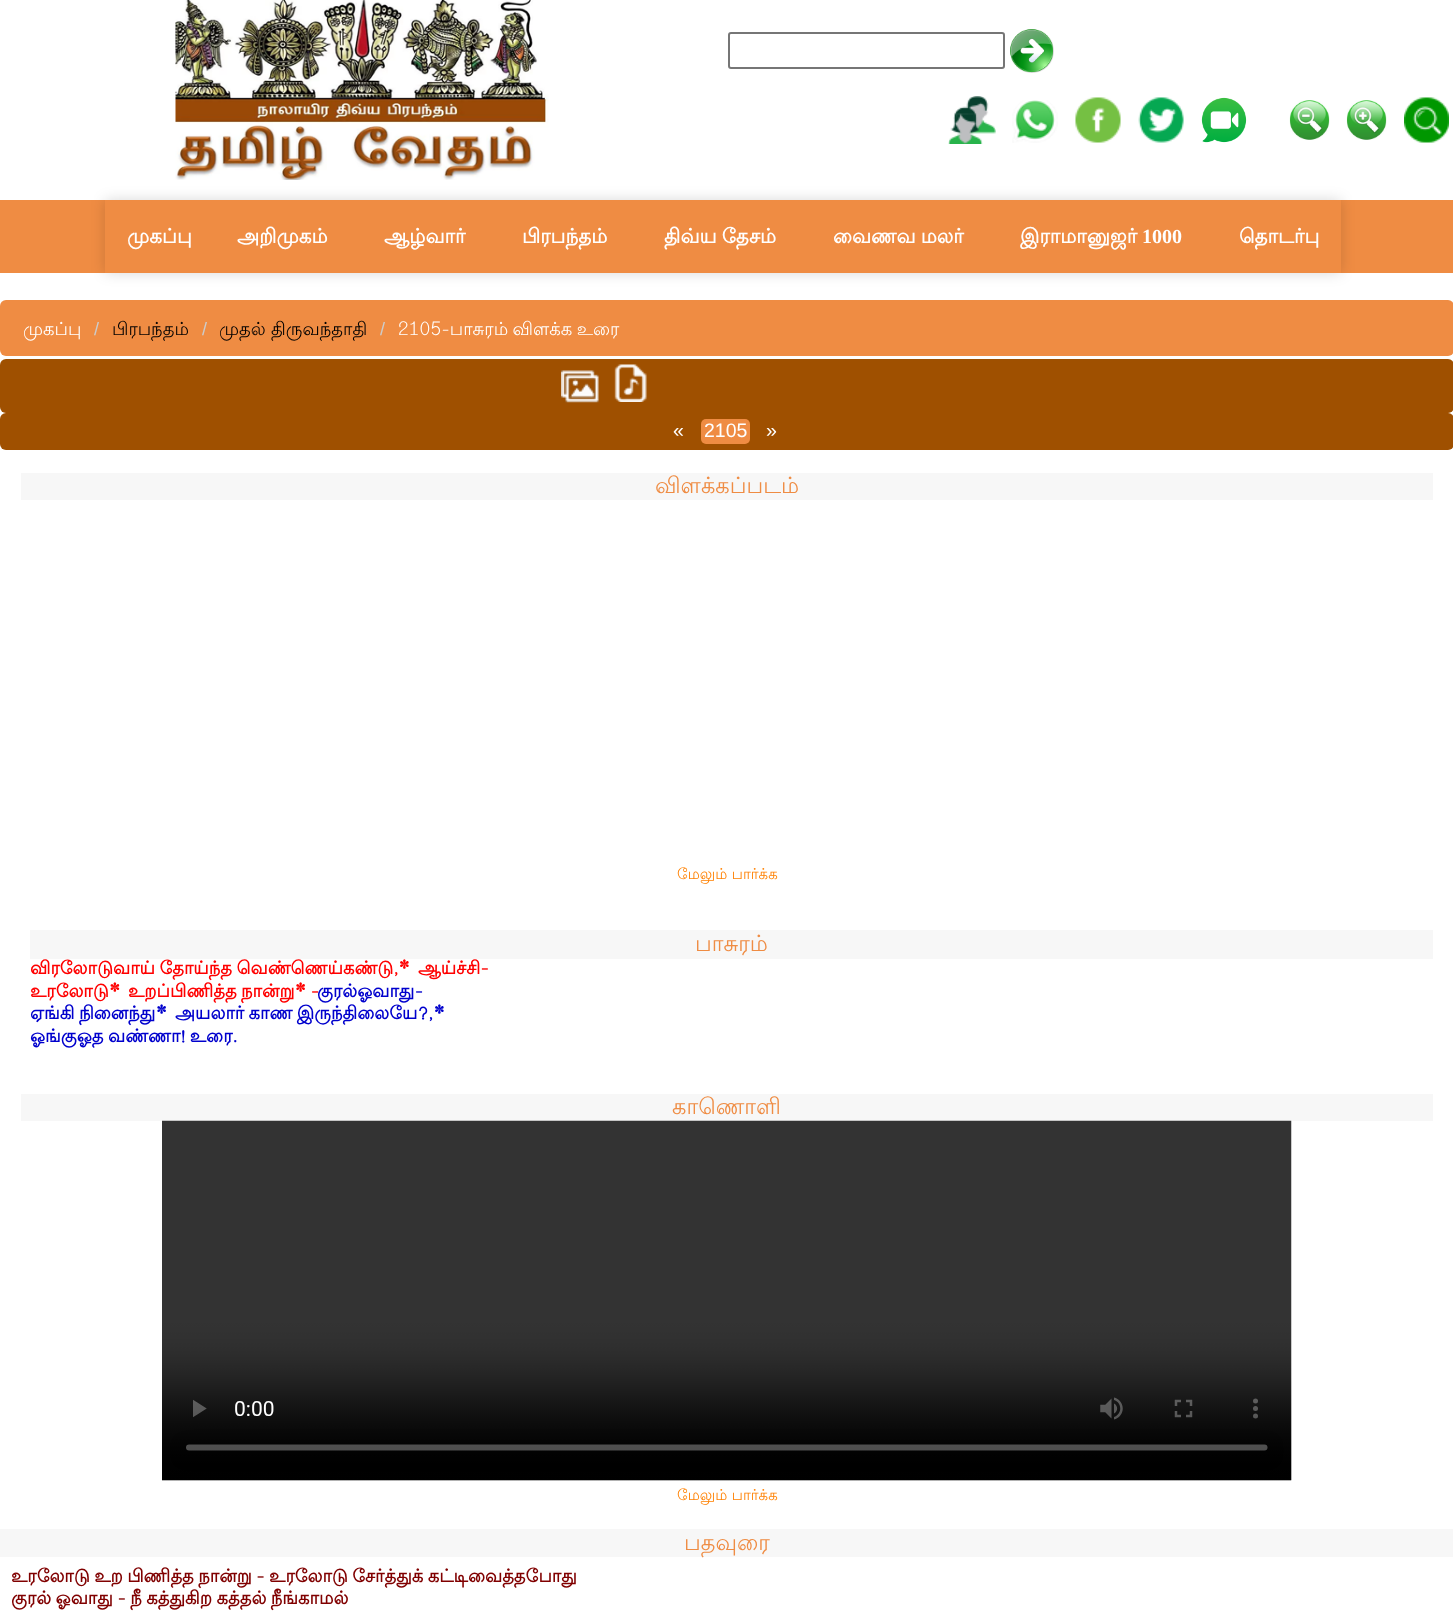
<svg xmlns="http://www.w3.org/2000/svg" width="1453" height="1613">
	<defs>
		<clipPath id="clip1"><path d="M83 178H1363V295H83ZM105 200H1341V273H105Z" clip-rule="evenodd" /></clipPath>
	</defs>
	<rect width="100%" height="100%" fill="#FFFFFF" />
	<image x="175" y="0" width="374" height="180" href="assets/img1.png" />
	<rect x="729" y="33" width="275" height="35" rx="2" fill="none" stroke="#767676" stroke-width="2" />
	<image x="1010" y="29" width="44" height="44" href="assets/img2.png" />
	<image x="948" y="96" width="48" height="48" href="assets/img3.png" />
	<image x="1012" y="100" width="46" height="43" href="assets/img4.png" />
	<image x="1075" y="97" width="46" height="46" href="assets/img5.png" />
	<image x="1138" y="97" width="46" height="46" href="assets/img6.png" />
	<image x="1201" y="97" width="46" height="46" href="assets/img7.png" />
	<image x="1289" y="100" width="41" height="40" href="assets/img8.png" />
	<image x="1346" y="100" width="41" height="40" href="assets/img9.png" />
	<image x="1404" y="97" width="45" height="46" href="assets/img10.png" />
	<rect x="0" y="200" width="1453" height="73" fill="#EF8C43" />
	<g clip-path="url(#clip1)">
		<rect x="105" y="200" width="1236" height="73" fill="#000000" fill-opacity="0.15" filter="blur(7px)" />
	</g>
	<g font-family="Lohit Tamil" font-size="20" font-weight="700" fill="#FFFFFF">
		<text x="127" y="243">முகப்பு</text>
		<text x="237" y="243">அறிமுகம்</text>
		<text x="384" y="243">ஆழ்வார்</text>
		<text x="522" y="243">பிரபந்தம்</text>
		<text x="664" y="243" word-spacing="-1">திவ்ய தேசம்</text>
		<text x="833" y="243" word-spacing="-1">வைணவ மலர்</text>
		<text x="1020" y="243">இராமானுஜர்</text>
	</g>
	<text x="1142" y="243" font-family="Liberation Serif" font-size="20" font-weight="700" fill="#FFFFFF">1000</text>
	<text x="1239" y="243" font-family="Lohit Tamil" font-size="20" font-weight="700" fill="#FFFFFF">தொடர்பு</text>
	<rect x="0" y="300" width="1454" height="56" rx="6" fill="#EF8C43" />
	<text x="23" y="335" font-family="Lohit Tamil" font-size="18" fill="#FFFFFF">முகப்பு</text>
	<text x="94" y="335" font-family="Liberation Sans" font-size="18" fill="#CCCCCC">/</text>
	<text x="112" y="335" font-family="Lohit Tamil" font-size="18" fill="#000000">பிரபந்தம்</text>
	<text x="202" y="335" font-family="Liberation Sans" font-size="18" fill="#CCCCCC">/</text>
	<text x="219" y="335" font-family="Lohit Tamil" font-size="18" fill="#000000">முதல் திருவந்தாதி</text>
	<text x="380" y="335" font-family="Liberation Sans" font-size="18" fill="#CCCCCC">/</text>
	<text x="398" y="335" word-spacing="-1" font-family="Lohit Tamil" font-size="18" fill="#FFFFFF">2105-பாசுரம் விளக்க உரை</text>
	<rect x="0" y="359" width="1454" height="54" rx="6" fill="#9F5000" />
	<image x="561" y="370" width="38" height="33" href="assets/img11.png" />
	<image x="614" y="364" width="33" height="38" href="assets/img12.png" />
	<rect x="0" y="413" width="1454" height="37" rx="6" fill="#9F5000" />
	<text x="673" y="437" font-family="Liberation Sans" font-size="19.5" fill="#FFFFFF">«</text>
	<rect x="701" y="419" width="49" height="25" rx="5" fill="#EF8C43" />
	<g font-family="Liberation Sans" font-size="19.5" fill="#FFFFFF">
		<text x="704" y="437">2105</text>
		<text x="766" y="437">»</text>
	</g>
	<rect x="21" y="473" width="1412" height="27" fill="#F7F7F7" />
	<text x="655" y="493" font-family="Lohit Tamil" font-size="22.5" fill="#EF8C43">விளக்கப்படம்</text>
	<text x="677" y="879" font-family="Lohit Tamil" font-size="15" fill="#FF8000">மேலும் பார்க்க</text>
	<rect x="30" y="930" width="1403" height="29" fill="#F7F7F7" />
	<text x="695" y="951" font-family="Lohit Tamil" font-size="22.5" fill="#EF8C43">பாசுரம்</text>
	<g font-family="Lohit Tamil" font-size="18" font-weight="700" fill="#FF0000">
		<text x="30" y="974" word-spacing="-1">விரலோடுவாய் தோய்ந்த வெண்ணெய்கண்டு,*</text>
		<text x="418" y="974">ஆய்ச்சி-</text>
		<text x="30" y="997">உரலோடு*</text>
		<text x="128" y="997" word-spacing="-1">உறப்பிணித்த நான்று* -</text>
	</g>
	<g font-family="Lohit Tamil" font-size="18" font-weight="700" fill="#0000CD">
		<text x="317" y="997">குரல்ஓவாது-</text>
		<text x="30" y="1019" word-spacing="-1">ஏங்கி நினைந்து*</text>
		<text x="175" y="1019" word-spacing="-1">அயலார் காண இருந்திலையே?,*</text>
		<text x="30" y="1042" word-spacing="-1">ஓங்குஓத வண்ணா! உரை.</text>
	</g>
	<rect x="21" y="1094" width="1412" height="27" fill="#F7F7F7" />
	<text x="672" y="1114" font-family="Lohit Tamil" font-size="22.5" fill="#EF8C43">காணொளி</text>
	<image x="162" y="1120" width="1130" height="361" href="assets/img13.png" />
	<text x="677" y="1500" font-family="Lohit Tamil" font-size="15" fill="#FF8000">மேலும் பார்க்க</text>
	<rect x="0" y="1529" width="1453" height="28" fill="#F7F7F7" />
	<text x="684" y="1550" font-family="Lohit Tamil" font-size="22.5" fill="#EF8C43">பதவுரை</text>
	<g font-family="Lohit Tamil" font-size="18" font-weight="700" fill="#800000">
		<text x="11" y="1582" word-spacing="-1">உரலோடு உற பிணித்த நான்று - உரலோடு சேர்த்துக் கட்டிவைத்தபோது</text>
		<text x="11" y="1604" word-spacing="-1">குரல் ஓவாது - நீ கத்துகிற கத்தல் நீங்காமல்</text>
	</g>
</svg>
